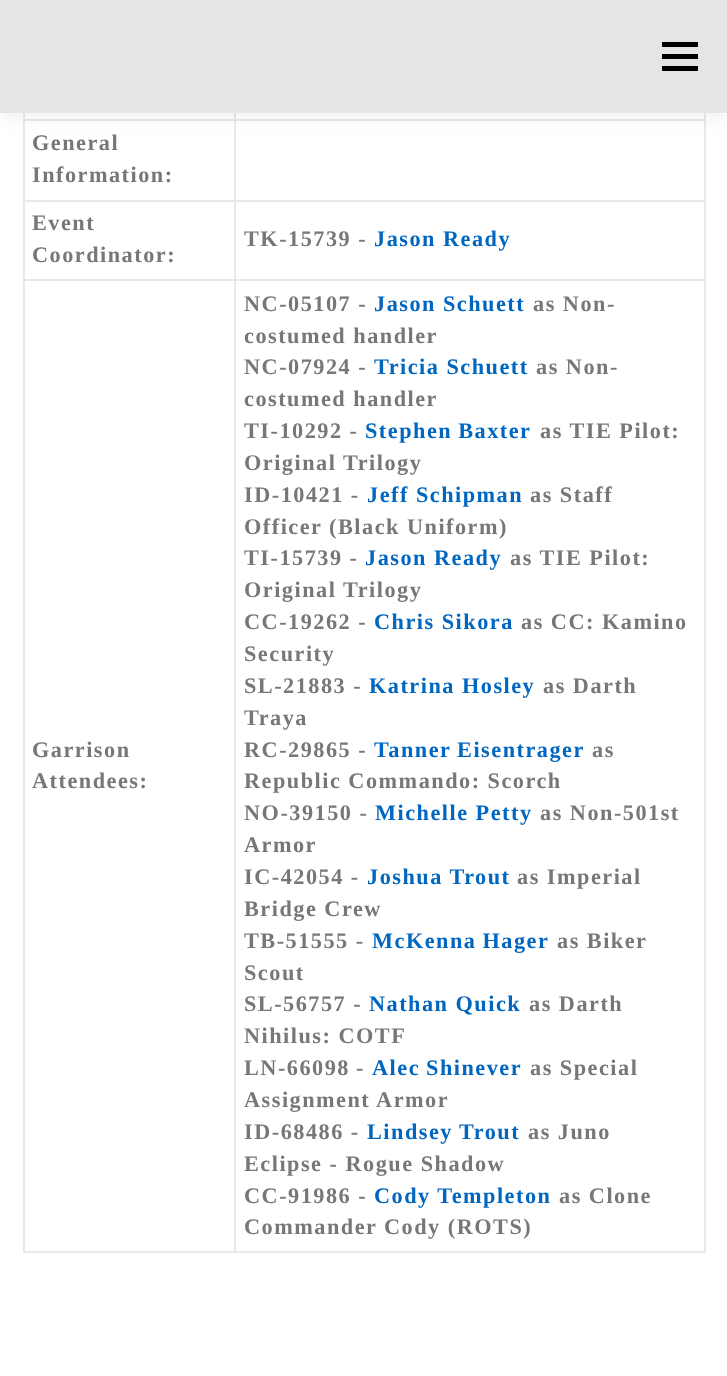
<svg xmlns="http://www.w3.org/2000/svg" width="727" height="1376">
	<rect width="100%" height="100%" fill="#FFFFFF" />
	<rect x="704" y="113" width="2" height="1140" fill="#E9E9E9" />
	<rect x="23" y="1251" width="682" height="2" fill="#E9E9E9" />
	<rect x="23" y="113" width="2" height="1140" fill="#E9E9E9" />
	<rect x="234" y="119" width="471" height="2" fill="#E9E9E9" />
	<rect x="234" y="200" width="471" height="2" fill="#E9E9E9" />
	<rect x="234" y="279" width="471" height="2" fill="#E9E9E9" />
	<rect x="234" y="279" width="2" height="974" fill="#E9E9E9" />
	<rect x="23" y="279" width="213" height="2" fill="#E9E9E9" />
	<rect x="234" y="200" width="2" height="81" fill="#E9E9E9" />
	<rect x="23" y="200" width="213" height="2" fill="#E9E9E9" />
	<rect x="234" y="119" width="2" height="82" fill="#E9E9E9" />
	<rect x="23" y="119" width="213" height="2" fill="#E9E9E9" />
	<rect x="234" y="113" width="2" height="7" fill="#E9E9E9" />
	<rect x="0" y="8" width="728" height="112" fill="#323232" fill-opacity="0.06" filter="blur(7.5px)" />
	<rect x="0" y="0" width="727" height="113" fill="#E5E5E5" />
	<rect x="662" y="54" width="36" height="5" fill="#000000" />
	<rect x="662" y="42" width="36" height="5" fill="#000000" />
	<rect x="662" y="66" width="36" height="5" fill="#000000" />
	<g font-family="Liberation Serif" font-size="22.25" font-weight="700" letter-spacing="1.5" fill="#777777">
		<text x="32" y="150">General</text>
		<text x="32" y="182">Information:</text>
		<text x="32" y="230">Event</text>
		<text x="32" y="262">Coordinator:</text>
		<text x="244" y="246">TK-15739 -</text>
	</g>
	<text x="374" y="246" font-family="Liberation Serif" font-size="22.25" font-weight="700" letter-spacing="1.5" fill="#0066BF">Jason Ready</text>
	<g font-family="Liberation Serif" font-size="22.25" font-weight="700" letter-spacing="1.5" fill="#777777">
		<text x="32" y="757">Garrison</text>
		<text x="32" y="788">Attendees:</text>
		<text x="244" y="311">NC-05107 -</text>
	</g>
	<text x="374" y="311" font-family="Liberation Serif" font-size="22.25" font-weight="700" letter-spacing="1.5" fill="#0066BF">Jason Schuett</text>
	<g font-family="Liberation Serif" font-size="22.25" font-weight="700" letter-spacing="1.5" fill="#777777">
		<text x="533" y="311">as Non-</text>
		<text x="244" y="343">costumed handler</text>
		<text x="244" y="374">NC-07924 -</text>
	</g>
	<text x="374" y="374" font-family="Liberation Serif" font-size="22.25" font-weight="700" letter-spacing="1.5" fill="#0066BF">Tricia Schuett</text>
	<g font-family="Liberation Serif" font-size="22.25" font-weight="700" letter-spacing="1.5" fill="#777777">
		<text x="536" y="374">as Non-</text>
		<text x="244" y="406">costumed handler</text>
		<text x="244" y="438">TI-10292 -</text>
	</g>
	<text x="365" y="438" word-spacing="-1" font-family="Liberation Serif" font-size="22.25" font-weight="700" letter-spacing="1.5" fill="#0066BF">Stephen Baxter</text>
	<g font-family="Liberation Serif" font-size="22.25" font-weight="700" letter-spacing="1.5" fill="#777777">
		<text x="540" y="438">as TIE Pilot:</text>
		<text x="244" y="470">Original Trilogy</text>
		<text x="244" y="502">ID-10421 -</text>
	</g>
	<text x="367" y="502" font-family="Liberation Serif" font-size="22.25" font-weight="700" letter-spacing="1.5" fill="#0066BF">Jeff Schipman</text>
	<g font-family="Liberation Serif" font-size="22.25" font-weight="700" letter-spacing="1.5" fill="#777777">
		<text x="530" y="502">as Staff</text>
		<text x="244" y="534">Officer (Black Uniform)</text>
		<text x="244" y="565">TI-15739 -</text>
	</g>
	<text x="365" y="565" font-family="Liberation Serif" font-size="22.25" font-weight="700" letter-spacing="1.5" fill="#0066BF">Jason Ready</text>
	<g font-family="Liberation Serif" font-size="22.25" font-weight="700" letter-spacing="1.5" fill="#777777">
		<text x="510" y="565">as TIE Pilot:</text>
		<text x="244" y="597">Original Trilogy</text>
		<text x="244" y="629">CC-19262 -</text>
	</g>
	<text x="374" y="629" font-family="Liberation Serif" font-size="22.25" font-weight="700" letter-spacing="1.5" fill="#0066BF">Chris Sikora</text>
	<g font-family="Liberation Serif" font-size="22.25" font-weight="700" letter-spacing="1.5" fill="#777777">
		<text x="521" y="629">as CC: Kamino</text>
		<text x="244" y="661">Security</text>
		<text x="244" y="693">SL-21883 -</text>
	</g>
	<text x="369" y="693" font-family="Liberation Serif" font-size="22.25" font-weight="700" letter-spacing="1.5" fill="#0066BF">Katrina Hosley</text>
	<g font-family="Liberation Serif" font-size="22.25" font-weight="700" letter-spacing="1.5" fill="#777777">
		<text x="543" y="693">as Darth</text>
		<text x="244" y="725">Traya</text>
		<text x="244" y="757">RC-29865 -</text>
	</g>
	<text x="374" y="757" word-spacing="-1" font-family="Liberation Serif" font-size="22.25" font-weight="700" letter-spacing="1.5" fill="#0066BF">Tanner Eisentrager</text>
	<g font-family="Liberation Serif" font-size="22.25" font-weight="700" letter-spacing="1.5" fill="#777777">
		<text x="592" y="757">as</text>
		<text x="244" y="788">Republic Commando: Scorch</text>
		<text x="244" y="820">NO-39150 -</text>
	</g>
	<text x="375" y="820" font-family="Liberation Serif" font-size="22.25" font-weight="700" letter-spacing="1.5" fill="#0066BF">Michelle Petty</text>
	<g font-family="Liberation Serif" font-size="22.25" font-weight="700" letter-spacing="1.5" fill="#777777">
		<text x="540" y="820">as Non-501st</text>
		<text x="244" y="852">Armor</text>
		<text x="244" y="884">IC-42054 -</text>
	</g>
	<text x="367" y="884" font-family="Liberation Serif" font-size="22.25" font-weight="700" letter-spacing="1.5" fill="#0066BF">Joshua Trout</text>
	<g font-family="Liberation Serif" font-size="22.25" font-weight="700" letter-spacing="1.5" fill="#777777">
		<text x="517" y="884">as Imperial</text>
		<text x="244" y="916">Bridge Crew</text>
		<text x="244" y="948">TB-51555 -</text>
	</g>
	<text x="372" y="948" word-spacing="-1" font-family="Liberation Serif" font-size="22.25" font-weight="700" letter-spacing="1.5" fill="#0066BF">McKenna Hager</text>
	<g font-family="Liberation Serif" font-size="22.25" font-weight="700" letter-spacing="1.5" fill="#777777">
		<text x="557" y="948">as Biker</text>
		<text x="244" y="980">Scout</text>
		<text x="244" y="1011">SL-56757 -</text>
	</g>
	<text x="369" y="1011" font-family="Liberation Serif" font-size="22.25" font-weight="700" letter-spacing="1.5" fill="#0066BF">Nathan Quick</text>
	<g font-family="Liberation Serif" font-size="22.25" font-weight="700" letter-spacing="1.5" fill="#777777">
		<text x="529" y="1011">as Darth</text>
		<text x="244" y="1043">Nihilus: COTF</text>
		<text x="244" y="1075" word-spacing="-1">LN-66098 -</text>
	</g>
	<text x="372" y="1075" word-spacing="-1" font-family="Liberation Serif" font-size="22.25" font-weight="700" letter-spacing="1.5" fill="#0066BF">Alec Shinever</text>
	<g font-family="Liberation Serif" font-size="22.25" font-weight="700" letter-spacing="1.5" fill="#777777">
		<text x="530" y="1075">as Special</text>
		<text x="244" y="1107">Assignment Armor</text>
		<text x="244" y="1139">ID-68486 -</text>
	</g>
	<g font-family="Liberation Serif" font-size="22.25" font-weight="700" letter-spacing="1.5" fill="#0066BF">
		<text x="367" y="1139">Lindsey</text>
		<text x="459" y="1139">Trout</text>
	</g>
	<g font-family="Liberation Serif" font-size="22.25" font-weight="700" letter-spacing="1.5" fill="#777777">
		<text x="528" y="1139">as Juno</text>
		<text x="244" y="1171">Eclipse - Rogue Shadow</text>
		<text x="244" y="1203">CC-91986 -</text>
	</g>
	<text x="374" y="1203" font-family="Liberation Serif" font-size="22.25" font-weight="700" letter-spacing="1.5" fill="#0066BF">Cody Templeton</text>
	<g font-family="Liberation Serif" font-size="22.25" font-weight="700" letter-spacing="1.5" fill="#777777">
		<text x="559" y="1203">as Clone</text>
		<text x="244" y="1234">Commander Cody (ROTS)</text>
	</g>
</svg>
